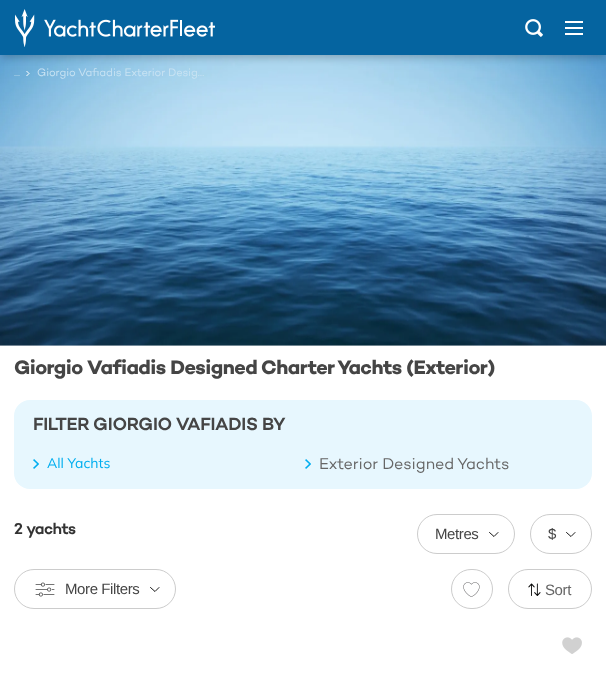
<svg xmlns="http://www.w3.org/2000/svg" width="606" height="692">
	<defs>
		<linearGradient id="g1" gradientUnits="userSpaceOnUse" x1="303" y1="55" x2="303" y2="346"><stop offset="0.01" stop-color="#F3F3F3" /><stop offset="0.1" stop-color="#FDFDFD" /><stop offset="1" stop-color="#F7F9FA" /></linearGradient>
	</defs>
	<rect width="100%" height="100%" fill="#FFFFFF" />
	<rect x="0" y="345" width="606" height="1" fill="url(#g1)" />
	<image x="0" y="55" width="606" height="291" href="assets/img3.png" />
	<rect x="1" y="4" width="604" height="53" fill="#000000" fill-opacity="0.24" filter="blur(4px)" />
	<rect x="0" y="0" width="606" height="55" fill="#0564A0" />
	<image x="15" y="9" width="200" height="38" href="assets/img1.png" />
	<image x="525" y="19" width="18" height="18" href="assets/img2.png" />
	<rect x="565" y="21" width="18" height="2" fill="#FFFFFF" />
	<rect x="565" y="27" width="18" height="2" fill="#FFFFFF" />
	<rect x="565" y="33" width="18" height="2" fill="#FFFFFF" />
	<image x="26" y="71" width="4" height="5" href="assets/img4.png" />
	<text x="14" y="76" font-family="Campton" font-size="11" fill="#B6D6EB">...</text>
	<text x="37" y="76" font-family="Campton" font-size="11" fill="#C9E3F3">Giorgio Vafiadis Exterior Desig…</text>
	<text x="14" y="374" font-family="Campton" font-size="20" font-weight="700" letter-spacing="-0.5" fill="#454545">Giorgio Vafiadis Designed Charter Yachts (Exterior)</text>
	<rect x="14" y="400" width="578" height="89" rx="16" fill="#E7F7FE" />
	<text x="33" y="430" font-family="Campton" font-size="18" font-weight="600" letter-spacing="-0.35" fill="#454545">FILTER GIORGIO VAFIADIS BY</text>
	<image x="33" y="459" width="6" height="10" href="assets/img5.png" />
	<text x="47" y="468" font-family="Mulish" font-size="14" fill="#00AEEF">All Yachts</text>
	<image x="305" y="459" width="6" height="10" href="assets/img5.png" />
	<text x="319" y="469" font-family="Campton" font-size="16" fill="#666666">Exterior Designed Yachts</text>
	<text x="14" y="534" font-family="Campton" font-size="16" font-weight="600" letter-spacing="-0.5" fill="#333333">2 yachts</text>
	<path d="M489.5 532.5L494 536.5L498 532.5" fill="none" stroke="#000000" stroke-width="0.9" stroke-linecap="round" stroke-linejoin="round" />
	<rect x="417.5" y="514.5" width="97" height="39" rx="19.5" fill="none" stroke="#CCCCCC" />
	<text x="435" y="539" font-family="Liberation Sans" font-size="15" letter-spacing="-0.4" fill="#454545">Metres</text>
	<path d="M566.5 532.5L571 536.5L575 532.5" fill="none" stroke="#000000" stroke-width="0.9" stroke-linecap="round" stroke-linejoin="round" />
	<rect x="530.5" y="514.5" width="61" height="39" rx="19.5" fill="none" stroke="#CCCCCC" />
	<text x="548" y="539" font-family="Liberation Sans" font-size="15" letter-spacing="-0.4" fill="#454545">$</text>
	<path d="M150.5 587.5L155 591.5L159 587.5" fill="none" stroke="#000000" stroke-width="0.9" stroke-linecap="round" stroke-linejoin="round" />
	<rect x="14.5" y="569.5" width="161" height="39" rx="19.5" fill="none" stroke="#CCCCCC" />
	<image x="35" y="582" width="20" height="15" href="assets/img6.png" />
	<text x="65" y="594" font-family="Liberation Sans" font-size="15" letter-spacing="-0.4" fill="#454545">More Filters</text>
	<image x="463" y="582" width="17" height="15" href="assets/img7.png" />
	<rect x="451.5" y="569.5" width="41" height="39" rx="19.5" fill="none" stroke="#CCCCCC" />
	<image x="528" y="583" width="13" height="13" href="assets/img8.png" />
	<rect x="508.5" y="569.5" width="83" height="39" rx="19.5" fill="none" stroke="#CCCCCC" />
	<text x="545" y="595" font-family="Liberation Sans" font-size="15" letter-spacing="-0.4" fill="#666666">Sort</text>
	<image x="562" y="637" width="20" height="17" href="assets/img9.png" />
</svg>
